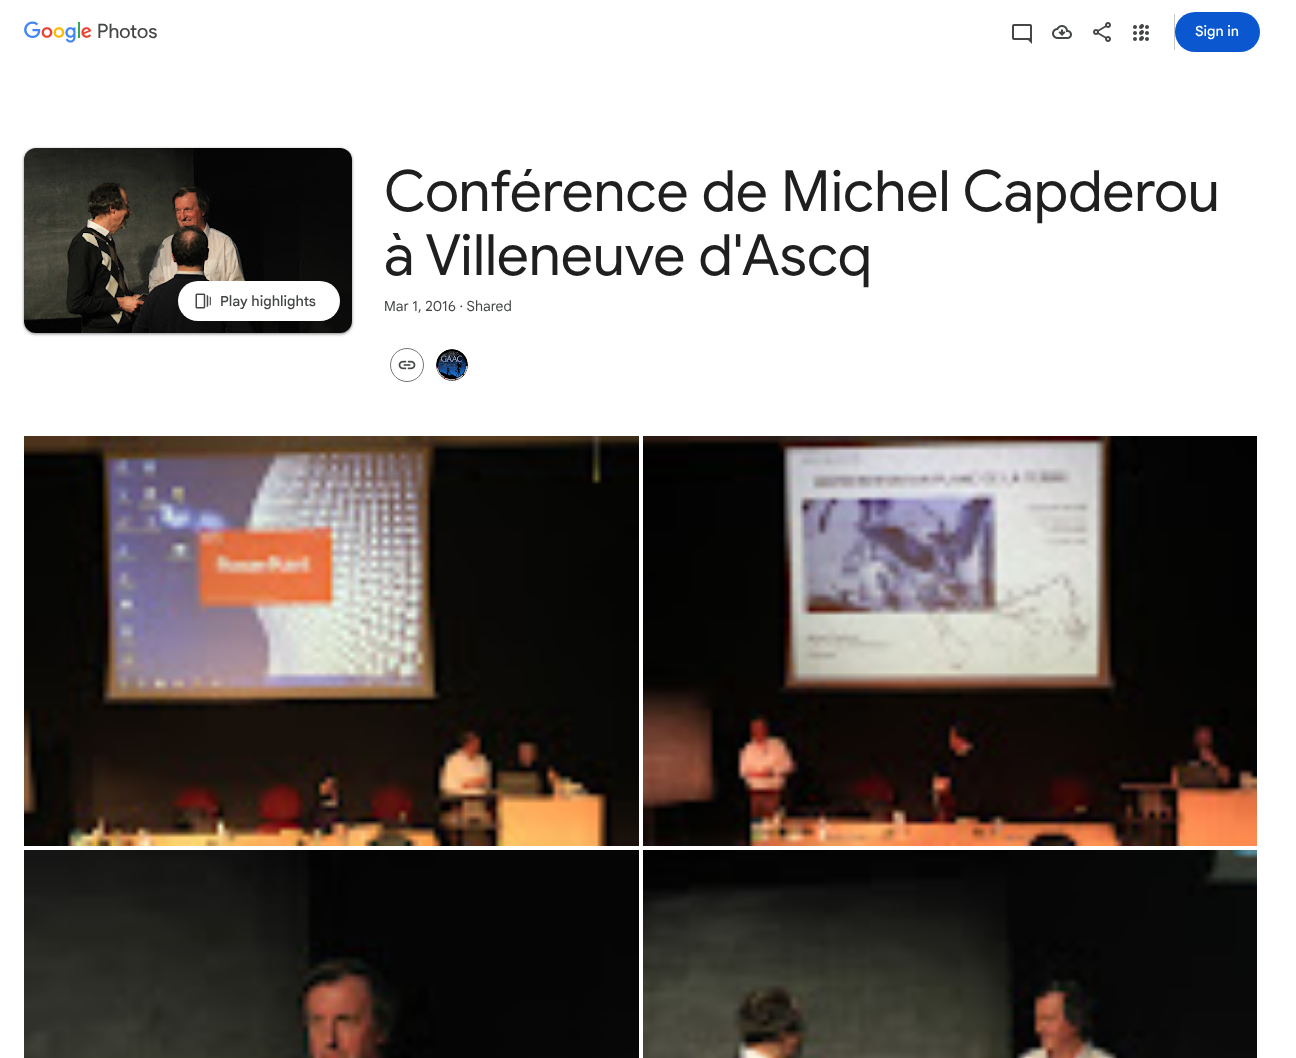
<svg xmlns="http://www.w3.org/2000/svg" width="1296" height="1058">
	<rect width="100%" height="100%" fill="#FFFFFF" />
	<image x="24" y="21" width="68" height="22" href="assets/img1.png" />
	<text x="97" y="38" font-family="Product Sans" font-size="20" fill="#444746">Photos</text>
	<image x="1012" y="24" width="20" height="20" href="assets/img2.png" />
	<image x="1052" y="25" width="20" height="14" href="assets/img3.png" />
	<image x="1093" y="22" width="18" height="20" href="assets/img4.png" />
	<image x="1140" y="24" width="4" height="16" href="assets/img5.png" />
	<rect x="1174" y="14" width="1" height="36" fill="#C4C7C5" />
	<rect x="23" y="148" width="330" height="187" rx="13" fill="#000000" fill-opacity="0.15" filter="blur(1.5px)" />
	<rect x="24" y="149" width="328" height="185" rx="12" fill="#000000" fill-opacity="0.3" filter="blur(1px)" />
	<image x="24" y="148" width="328" height="185" href="assets/img6.png" />
	<rect x="178" y="281" width="162" height="40" rx="20" fill="#FFFFFF" />
	<image x="195" y="293" width="16" height="16" href="assets/img7.png" />
	<text x="220" y="306" font-family="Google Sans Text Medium" font-size="14" font-weight="500" fill="#444746">Play highlights</text>
	<g font-family="Google Sans" font-size="57" fill="#1F1F1F">
		<text x="384" y="211">Conférence de Michel Capderou</text>
		<text x="384" y="275">à Villeneuve d'Ascq</text>
	</g>
	<text x="384" y="311" font-family="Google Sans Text" font-size="14" fill="#444746">Mar 1, 2016 · Shared</text>
	<circle cx="407" cy="365" r="16.5" fill="none" stroke="#747775" />
	<image x="398" y="360" width="18" height="10" href="assets/img8.png" />
	<image x="436" y="349" width="32" height="32" href="assets/img9.png" />
	<image x="24" y="436" width="615" height="410" href="assets/img10.png" />
	<image x="643" y="436" width="614" height="410" href="assets/img11.png" />
	<image x="24" y="850" width="615" height="208" href="assets/img12.png" />
	<image x="643" y="850" width="614" height="208" href="assets/img13.png" />
	<image x="1133" y="25" width="16" height="16" href="assets/img14.png" />
	<rect x="1175" y="12" width="85" height="40" rx="20" fill="#0B57D0" />
	<text x="1195" y="36" font-family="Google Sans Text Medium" font-size="14" font-weight="500" fill="#FFFFFF">Sign in</text>
</svg>
